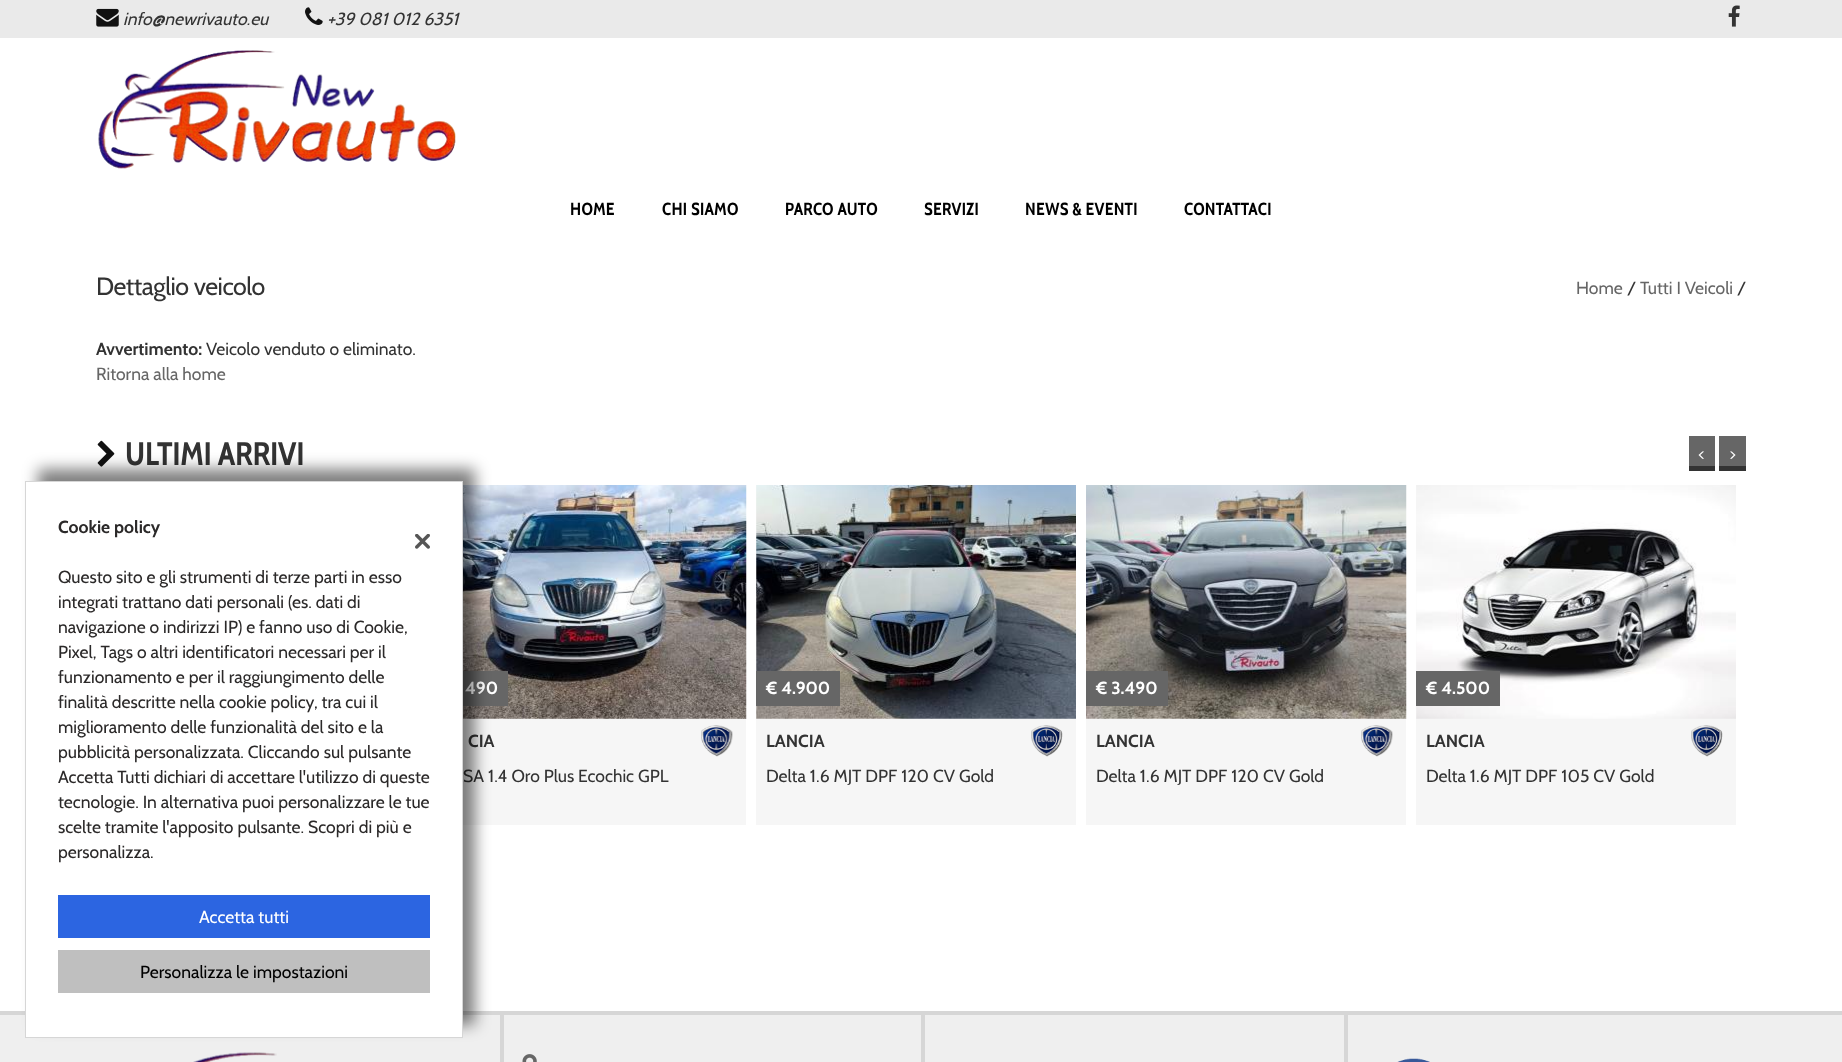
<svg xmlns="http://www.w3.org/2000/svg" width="1842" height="1062">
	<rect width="100%" height="100%" fill="#FFFFFF" />
	<rect x="0" y="0" width="1842" height="38" fill="#EAEAEA" />
	<image x="96" y="8" width="23" height="19" href="assets/img1.png" />
	<text x="123" y="25" font-family="Cabin" font-size="17.5" font-style="italic" fill="#333333">info@newrivauto.eu</text>
	<image x="305" y="7" width="18" height="18" href="assets/img2.png" />
	<text x="327" y="25" font-family="Cabin" font-size="17.5" font-style="italic" fill="#333333">+39 081 012 6351</text>
	<image x="1728" y="5" width="12" height="22" href="assets/img3.png" />
	<image x="98" y="50" width="358" height="119" href="assets/img4.png" />
	<g font-family="Cabin Condensed" font-size="17.5" font-weight="700" letter-spacing="0.25" fill="#000000">
		<text x="570" y="215">HOME</text>
		<text x="662" y="215">CHI SIAMO</text>
		<text x="785" y="215">PARCO AUTO</text>
		<text x="924" y="215">SERVIZI</text>
		<text x="1025" y="215">NEWS &amp; EVENTI</text>
		<text x="1184" y="215">CONTATTACI</text>
	</g>
	<text x="96" y="295" font-family="Cabin" font-size="25" letter-spacing="-0.5" fill="#333333">Dettaglio veicolo</text>
	<text x="1576" y="294" font-family="Cabin" font-size="17.5" fill="#666666">Home</text>
	<text x="1627" y="294" font-family="Cabin" font-size="17.5" fill="#333333">/</text>
	<text x="1640" y="294" font-family="Cabin" font-size="17.5" fill="#666666">Tutti I Veicoli</text>
	<text x="1737" y="294" font-family="Cabin" font-size="17.5" fill="#333333">/</text>
	<text x="96" y="355" font-family="Cabin" font-size="17.5" font-weight="700" fill="#333333">Avvertimento:</text>
	<text x="206" y="355" font-family="Cabin" font-size="17.5" fill="#333333">Veicolo venduto o eliminato.</text>
	<text x="96" y="380" font-family="Cabin" font-size="17.5" fill="#666666">Ritorna alla home</text>
	<image x="97" y="440" width="18" height="27" href="assets/img5.png" />
	<text x="125" y="465" font-family="Cabin Condensed" font-size="32.5" font-weight="700" fill="#333333">ULTIMI ARRIVI</text>
	<rect x="1689" y="436" width="26" height="30" fill="#666666" />
	<rect x="1689" y="466" width="26" height="5" fill="#333333" />
	<text x="1698" y="460" font-family="Cabin" font-size="17.5" fill="#FFFFFF">&lt;</text>
	<rect x="1719" y="436" width="27" height="30" fill="#666666" />
	<rect x="1719" y="466" width="27" height="5" fill="#333333" />
	<text x="1729" y="460" font-family="Cabin" font-size="17.5" fill="#FFFFFF">&gt;</text>
	<rect x="463" y="718" width="283" height="107" fill="#F6F6F6" />
	<image x="463" y="485" width="284" height="234" href="assets/img6.png" />
	<rect x="463" y="671" width="45" height="35" fill="#666666" />
	<text x="465" y="694" font-family="Cabin" font-size="17.5" font-weight="700" fill="#FFFFFF">490</text>
	<text x="468" y="747" font-family="Cabin" font-size="17.5" font-weight="700" fill="#333333">CIA</text>
	<image x="701" y="725" width="32" height="32" href="assets/img7.png" />
	<text x="463" y="782" font-family="Cabin" font-size="17.5" fill="#333333">SA 1.4 Oro Plus Ecochic GPL</text>
	<rect x="756" y="485" width="320" height="340" fill="#F6F6F6" />
	<image x="756" y="485" width="320" height="234" href="assets/img8.png" />
	<rect x="756" y="671" width="84" height="35" fill="#666666" />
	<text x="766" y="694" font-family="Cabin" font-size="17.5" font-weight="700" fill="#FFFFFF">€ 4.900</text>
	<text x="766" y="747" font-family="Cabin" font-size="17.5" font-weight="700" fill="#333333">LANCIA</text>
	<image x="1031" y="725" width="32" height="32" href="assets/img9.png" />
	<text x="766" y="782" font-family="Cabin" font-size="17.5" fill="#333333">Delta 1.6 MJT DPF 120 CV Gold</text>
	<rect x="1086" y="718" width="320" height="107" fill="#F6F6F6" />
	<image x="1086" y="485" width="321" height="234" href="assets/img10.png" />
	<rect x="1086" y="671" width="82" height="35" fill="#666666" />
	<text x="1096" y="694" font-family="Cabin" font-size="17.5" font-weight="700" fill="#FFFFFF">€ 3.490</text>
	<text x="1096" y="747" font-family="Cabin" font-size="17.5" font-weight="700" fill="#333333">LANCIA</text>
	<image x="1361" y="725" width="32" height="32" href="assets/img7.png" />
	<text x="1096" y="782" font-family="Cabin" font-size="17.5" fill="#333333">Delta 1.6 MJT DPF 120 CV Gold</text>
	<rect x="1416" y="485" width="320" height="340" fill="#F6F6F6" />
	<image x="1416" y="485" width="320" height="234" href="assets/img11.png" />
	<rect x="1416" y="671" width="84" height="35" fill="#666666" />
	<text x="1426" y="694" font-family="Cabin" font-size="17.5" font-weight="700" fill="#FFFFFF">€ 4.500</text>
	<text x="1426" y="747" font-family="Cabin" font-size="17.5" font-weight="700" fill="#333333">LANCIA</text>
	<image x="1691" y="725" width="32" height="32" href="assets/img12.png" />
	<text x="1426" y="782" font-family="Cabin" font-size="17.5" fill="#333333">Delta 1.6 MJT DPF 105 CV Gold</text>
	<rect x="0" y="1015" width="1842" height="47" fill="#EFEFEF" />
	<rect x="0" y="1011" width="1842" height="4" fill="#D6D6D6" />
	<rect x="38" y="469" width="437" height="556" fill="#000000" fill-opacity="0.5" filter="blur(7.5px)" />
	<rect x="25.5" y="481.5" width="437" height="556" fill="#FFFFFF" stroke="#D6D6D6" />
	<text x="58" y="533" font-family="Cabin" font-size="17.5" font-weight="700" fill="#2B2929">Cookie policy</text>
	<g font-family="Cabin" font-size="17.5" fill="#2B2929">
		<text x="58" y="583">Questo sito e gli strumenti di terze parti in esso</text>
		<text x="58" y="608">integrati trattano dati personali (es. dati di</text>
		<text x="58" y="633">navigazione o indirizzi IP) e fanno uso di Cookie,</text>
		<text x="58" y="658">Pixel, Tags o altri identificatori necessari per il</text>
		<text x="58" y="683">funzionamento e per il raggiungimento delle</text>
		<text x="58" y="708">finalità descritte nella cookie policy, tra cui il</text>
		<text x="58" y="733">miglioramento delle funzionalità del sito e la</text>
		<text x="58" y="758">pubblicità personalizzata. Cliccando sul pulsante</text>
		<text x="58" y="783">Accetta Tutti dichiari di accettare l'utilizzo di queste</text>
		<text x="58" y="808">tecnologie. In alternativa puoi personalizzare le tue</text>
		<text x="58" y="833">scelte tramite l'apposito pulsante. Scopri di più e</text>
		<text x="58" y="858">personalizza.</text>
	</g>
	<image x="415" y="534" width="15" height="15" href="assets/img13.png" />
	<rect x="58" y="895" width="372" height="43" fill="#2C65E1" />
	<text x="199" y="923" font-family="Cabin" font-size="17.5" fill="#FFFFFF">Accetta tutti</text>
	<rect x="58" y="950" width="372" height="43" fill="#BFBFBF" />
	<text x="140" y="978" font-family="Cabin" font-size="17.5" fill="#000000">Personalizza le impostazioni</text>
	<image x="193" y="1052" width="84" height="10" href="assets/img14.png" />
	<rect x="500" y="1015" width="4" height="47" fill="#D6D6D6" />
	<image x="522" y="1054" width="15" height="8" href="assets/img15.png" />
	<rect x="921" y="1015" width="4" height="47" fill="#D6D6D6" />
	<rect x="1344" y="1015" width="4" height="47" fill="#D6D6D6" />
	<image x="1397" y="1058" width="33" height="4" href="assets/img16.png" />
</svg>
